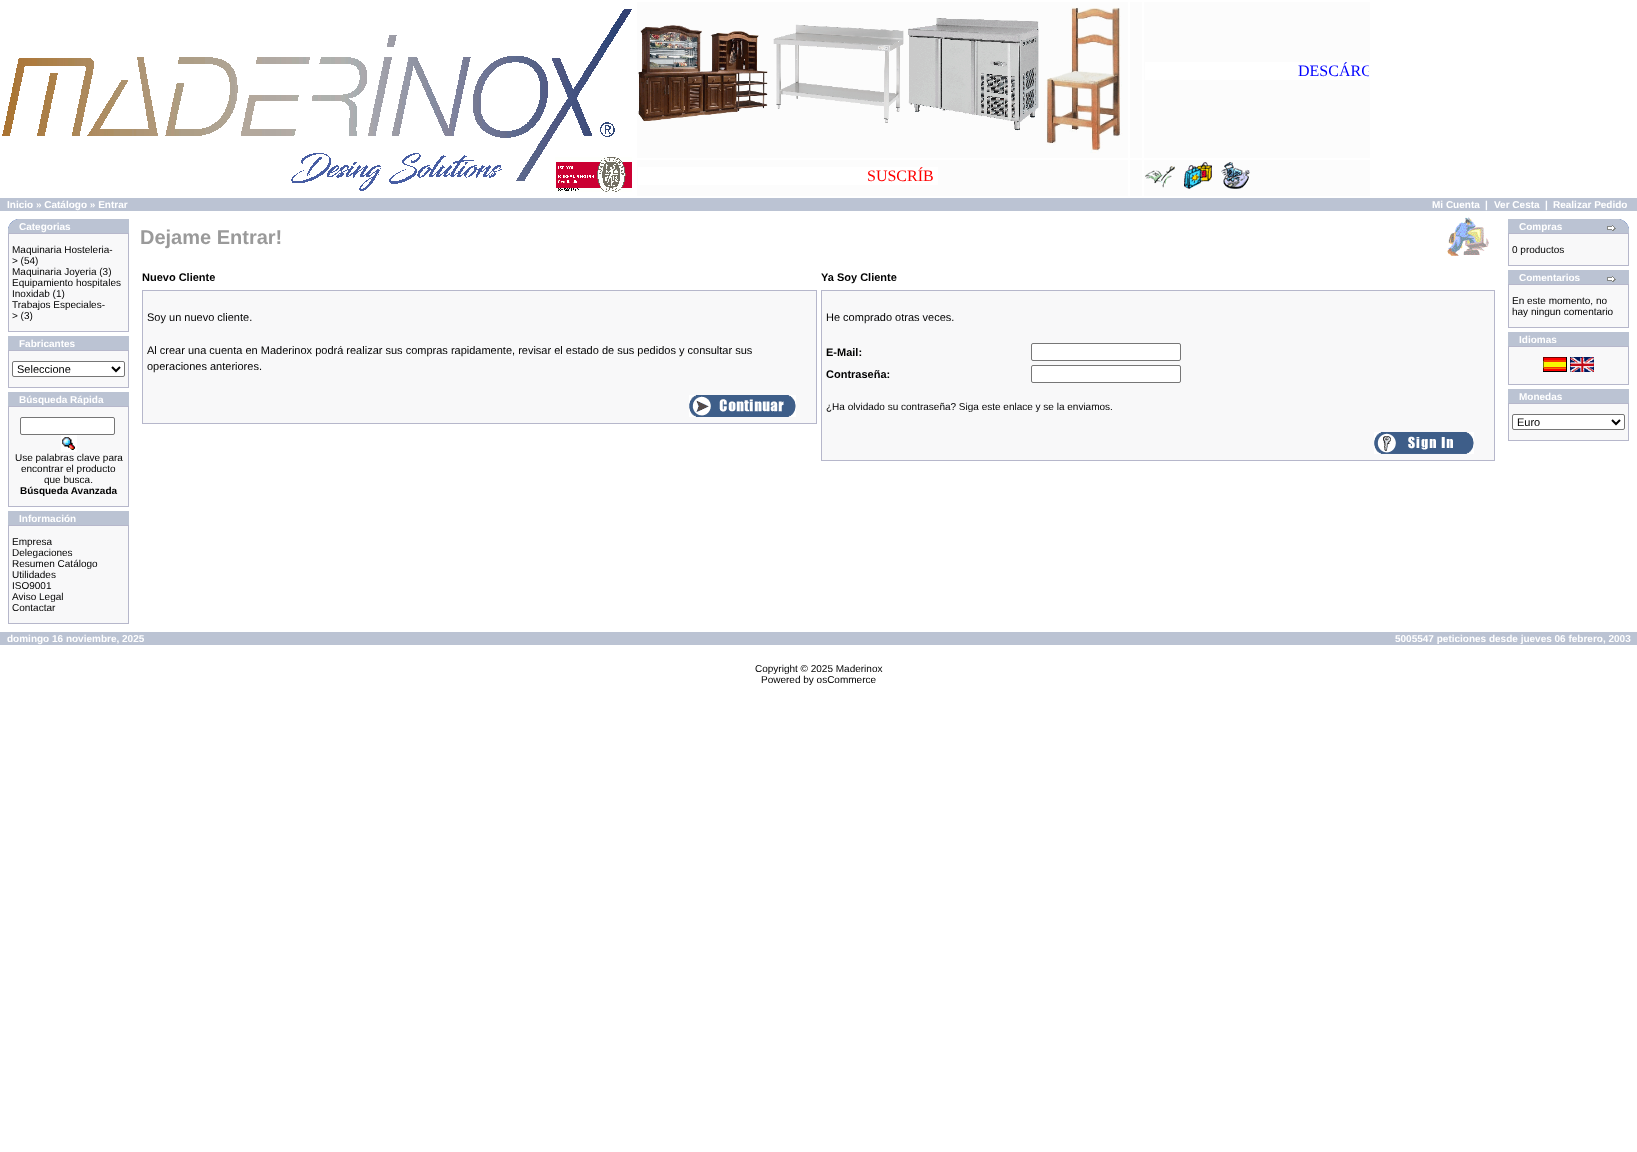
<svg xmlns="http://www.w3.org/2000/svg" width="1637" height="1152">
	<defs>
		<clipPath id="clip1"><rect x="1145" y="62" width="224" height="18" /></clipPath>
	</defs>
	<rect width="100%" height="100%" fill="#FFFFFF" />
	<image x="2" y="9" width="630" height="183" href="assets/img1.png" />
	<rect x="637" y="2" width="491" height="156" fill="#FCFCFC" />
	<image x="638" y="25" width="130" height="97" href="assets/img2.png" />
	<image x="773" y="24" width="131" height="99" href="assets/img3.png" />
	<image x="908" y="18" width="131" height="113" href="assets/img4.png" />
	<image x="1044" y="7" width="79" height="146" href="assets/img5.png" />
	<rect x="1130" y="2" width="12" height="156" fill="#FCFCFC" />
	<rect x="1144" y="2" width="226" height="156" fill="#FCFCFC" />
	<rect x="1145" y="62" width="224" height="18" fill="#FFFFFF" />
	<g clip-path="url(#clip1)">
		<text x="1298" y="76" font-family="Liberation Serif" font-size="16" fill="#0000FF">DESCÁRG</text>
	</g>
	<rect x="637" y="160" width="491" height="36" fill="#FCFCFC" />
	<rect x="638" y="167" width="300" height="18" fill="#FFFFFF" />
	<text x="867" y="181" font-family="Liberation Serif" font-size="16" fill="#FF0000">SUSCRÍB</text>
	<rect x="1130" y="160" width="12" height="36" fill="#FCFCFC" />
	<rect x="1144" y="160" width="226" height="36" fill="#FCFCFC" />
	<image x="1145" y="166" width="30" height="22" href="assets/img6.png" />
	<image x="1184" y="162" width="28" height="27" href="assets/img7.png" />
	<image x="1221" y="162" width="29" height="27" href="assets/img8.png" />
	<rect x="0" y="198" width="1637" height="13" fill="#BBC3D3" />
	<g font-family="Liberation Sans" font-size="10" font-weight="700" fill="#FFFFFF">
		<text x="7" y="208">Inicio » Catálogo » Entrar</text>
		<text x="1432" y="208">Mi Cuenta</text>
		<text x="1485" y="208">|</text>
		<text x="1494" y="208">Ver Cesta</text>
		<text x="1545" y="208">|</text>
		<text x="1553" y="208">Realizar Pedido</text>
	</g>
	<rect x="8" y="219" width="121" height="14" fill="#BBC3D3" />
	<image x="8" y="219" width="10" height="10" href="assets/img9.png" />
	<text x="19" y="230" font-family="Liberation Sans" font-size="10" font-weight="700" fill="#FFFFFF">Categorias</text>
	<rect x="8" y="233" width="121" height="99" fill="#B6B7CB" />
	<rect x="9" y="234" width="119" height="97" fill="#F8F8F9" />
	<g font-family="Liberation Sans" font-size="10" fill="#000000">
		<text x="12" y="253">Maquinaria Hosteleria-</text>
		<text x="12" y="264">&gt; (54)</text>
		<text x="12" y="275">Maquinaria Joyeria (3)</text>
		<text x="12" y="286">Equipamiento hospitales</text>
		<text x="12" y="297">Inoxidab (1)</text>
		<text x="12" y="308">Trabajos Especiales-</text>
		<text x="12" y="319">&gt; (3)</text>
	</g>
	<rect x="8" y="336" width="121" height="14" fill="#BBC3D3" />
	<text x="19" y="347" font-family="Liberation Sans" font-size="10" font-weight="700" fill="#FFFFFF">Fabricantes</text>
	<rect x="8" y="350" width="121" height="38" fill="#B6B7CB" />
	<rect x="9" y="351" width="119" height="36" fill="#F8F8F9" />
	<rect x="12.5" y="361.5" width="112" height="15" rx="1.5" fill="#FFFFFF" stroke="#767676" />
	<path d="M112 367L116 371L120 367" fill="none" stroke="#000000" stroke-width="2" />
	<text x="17" y="373" font-family="Liberation Sans" font-size="11" fill="#000000">Seleccione</text>
	<rect x="8" y="392" width="121" height="14" fill="#BBC3D3" />
	<text x="19" y="403" font-family="Liberation Sans" font-size="10" font-weight="700" fill="#FFFFFF">Búsqueda Rápida</text>
	<rect x="8" y="406" width="121" height="101" fill="#B6B7CB" />
	<rect x="9" y="407" width="119" height="99" fill="#F8F8F9" />
	<rect x="20.5" y="417.5" width="94" height="17" rx="1.5" fill="#FFFFFF" stroke="#767676" />
	<image x="61" y="435" width="16" height="17" href="assets/img10.png" />
	<g font-family="Liberation Sans" font-size="10" fill="#000000">
		<text x="15" y="461">Use palabras clave para</text>
		<text x="21" y="472">encontrar el producto</text>
		<text x="44" y="483">que busca.</text>
	</g>
	<text x="20" y="494" font-family="Liberation Sans" font-size="10" font-weight="700" fill="#000000">Búsqueda Avanzada</text>
	<rect x="8" y="511" width="121" height="14" fill="#BBC3D3" />
	<text x="19" y="522" font-family="Liberation Sans" font-size="10" font-weight="700" fill="#FFFFFF">Información</text>
	<rect x="8" y="525" width="121" height="99" fill="#B6B7CB" />
	<rect x="9" y="526" width="119" height="97" fill="#F8F8F9" />
	<g font-family="Liberation Sans" font-size="10" fill="#000000">
		<text x="12" y="545">Empresa</text>
		<text x="12" y="556">Delegaciones</text>
		<text x="12" y="567">Resumen Catálogo</text>
		<text x="12" y="578">Utilidades</text>
		<text x="12" y="589">ISO9001</text>
		<text x="12" y="600">Aviso Legal</text>
		<text x="12" y="611">Contactar</text>
	</g>
	<text x="140" y="244" font-family="Liberation Sans" font-size="20" font-weight="700" fill="#9A9A9A">Dejame Entrar!</text>
	<image x="1447" y="217" width="42" height="39" href="assets/img11.png" />
	<g font-family="Liberation Sans" font-size="11" font-weight="700" fill="#000000">
		<text x="142" y="281">Nuevo Cliente</text>
		<text x="821" y="281">Ya Soy Cliente</text>
	</g>
	<rect x="142" y="290" width="675" height="134" fill="#B6B7CB" />
	<rect x="143" y="291" width="673" height="132" fill="#F8F8F9" />
	<g font-family="Liberation Sans" font-size="11" fill="#000000">
		<text x="147" y="321">Soy un nuevo cliente.</text>
		<text x="147" y="354">Al crear una cuenta en Maderinox podrá realizar sus compras rapidamente, revisar el estado de sus pedidos y consultar sus</text>
		<text x="147" y="370">operaciones anteriores.</text>
	</g>
	<image x="689" y="395" width="107" height="22" href="assets/img12.png" />
	<rect x="821" y="290" width="674" height="171" fill="#B6B7CB" />
	<rect x="822" y="291" width="672" height="169" fill="#F8F8F9" />
	<text x="826" y="321" font-family="Liberation Sans" font-size="11" fill="#000000">He comprado otras veces.</text>
	<text x="826" y="356" font-family="Liberation Sans" font-size="11" font-weight="700" fill="#000000">E-Mail:</text>
	<rect x="1031.5" y="343.5" width="149" height="17" rx="1.5" fill="#FFFFFF" stroke="#767676" />
	<text x="826" y="378" font-family="Liberation Sans" font-size="11" font-weight="700" fill="#000000">Contraseña:</text>
	<rect x="1031.5" y="365.5" width="149" height="17" rx="1.5" fill="#FFFFFF" stroke="#767676" />
	<text x="826" y="410" font-family="Liberation Sans" font-size="10" fill="#000000">¿Ha olvidado su contraseña? Siga este enlace y se la enviamos.</text>
	<image x="1374" y="432" width="100" height="22" href="assets/img13.png" />
	<rect x="1508" y="219" width="121" height="14" fill="#BBC3D3" />
	<text x="1519" y="230" font-family="Liberation Sans" font-size="10" font-weight="700" fill="#FFFFFF">Compras</text>
	<image x="1607" y="225" width="9" height="6" href="assets/img14.png" />
	<image x="1619" y="219" width="10" height="10" href="assets/img15.png" />
	<rect x="1508" y="233" width="121" height="33" fill="#B6B7CB" />
	<rect x="1509" y="234" width="119" height="31" fill="#F8F8F9" />
	<text x="1512" y="253" font-family="Liberation Sans" font-size="10" fill="#000000">0 productos</text>
	<rect x="1508" y="270" width="121" height="14" fill="#BBC3D3" />
	<text x="1519" y="281" font-family="Liberation Sans" font-size="10" font-weight="700" fill="#FFFFFF">Comentarios</text>
	<image x="1607" y="276" width="9" height="6" href="assets/img14.png" />
	<rect x="1508" y="284" width="121" height="44" fill="#B6B7CB" />
	<rect x="1509" y="285" width="119" height="42" fill="#F8F8F9" />
	<g font-family="Liberation Sans" font-size="10" fill="#000000">
		<text x="1512" y="304">En este momento, no</text>
		<text x="1512" y="315">hay ningun comentario</text>
	</g>
	<rect x="1508" y="332" width="121" height="14" fill="#BBC3D3" />
	<text x="1519" y="343" font-family="Liberation Sans" font-size="10" font-weight="700" fill="#FFFFFF">Idiomas</text>
	<rect x="1508" y="346" width="121" height="39" fill="#B6B7CB" />
	<rect x="1509" y="347" width="119" height="37" fill="#F8F8F9" />
	<image x="1543" y="357" width="24" height="15" href="assets/img16.png" />
	<image x="1570" y="357" width="24" height="15" href="assets/img17.png" />
	<rect x="1508" y="389" width="121" height="14" fill="#BBC3D3" />
	<text x="1519" y="400" font-family="Liberation Sans" font-size="10" font-weight="700" fill="#FFFFFF">Monedas</text>
	<rect x="1508" y="403" width="121" height="38" fill="#B6B7CB" />
	<rect x="1509" y="404" width="119" height="36" fill="#F8F8F9" />
	<rect x="1512.5" y="414.5" width="112" height="15" rx="1.5" fill="#FFFFFF" stroke="#767676" />
	<path d="M1612 420L1616 424L1620 420" fill="none" stroke="#000000" stroke-width="2" />
	<text x="1517" y="426" font-family="Liberation Sans" font-size="11" fill="#000000">Euro</text>
	<rect x="0" y="632" width="1637" height="13" fill="#BBC3D3" />
	<g font-family="Liberation Sans" font-size="10" font-weight="700" fill="#FFFFFF">
		<text x="7" y="642">domingo 16 noviembre, 2025</text>
		<text x="1395" y="642">5005547 peticiones desde jueves 06 febrero, 2003</text>
	</g>
	<g font-family="Liberation Sans" font-size="10" fill="#000000">
		<text x="755" y="672">Copyright © 2025 Maderinox</text>
		<text x="761" y="683">Powered by osCommerce</text>
	</g>
</svg>
